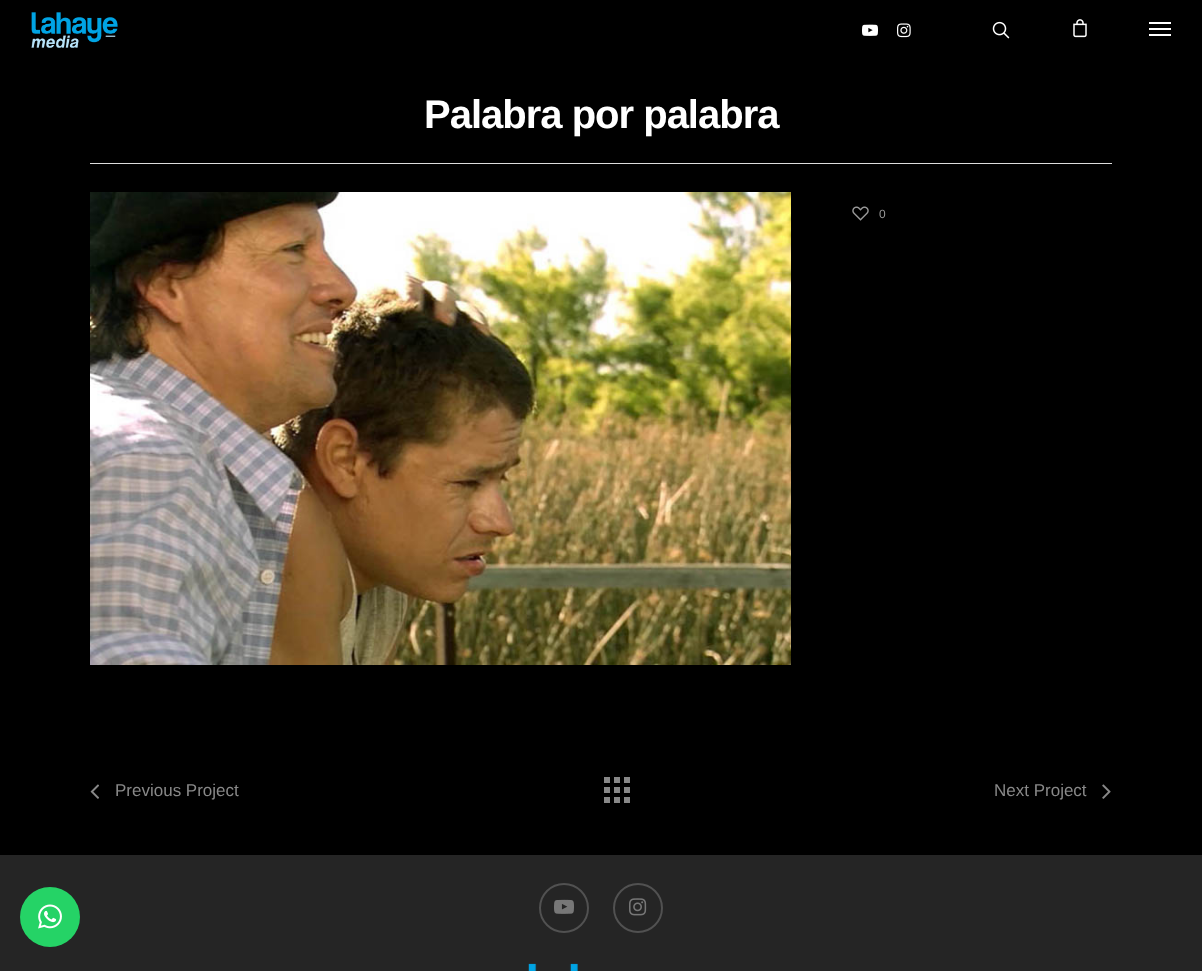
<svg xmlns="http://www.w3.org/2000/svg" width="1202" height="971">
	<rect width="100%" height="100%" fill="#000000" />
	<image x="31" y="12" width="87" height="36" href="assets/img1.png" />
	<image x="862" y="24" width="16" height="12" href="assets/img2.png" />
	<image x="897" y="23" width="14" height="15" href="assets/img3.png" />
	<image x="992" y="21" width="18" height="18" href="assets/img4.png" />
	<rect x="1149" y="22" width="22" height="2" fill="#FFFFFF" />
	<rect x="1149" y="34" width="22" height="2" fill="#FFFFFF" />
	<rect x="1149" y="28" width="22" height="2" fill="#FFFFFF" />
	<image x="1073" y="19" width="14" height="19" href="assets/img5.png" />
	<rect x="90" y="163" width="1022" height="1" fill="#DDDDDD" />
	<text x="424" y="128" font-family="Liberation Sans" font-size="40" font-weight="700" letter-spacing="-1" fill="#FFFFFF">Palabra por palabra</text>
	<image x="90" y="192" width="701" height="473" href="assets/img6.png" />
	<image x="852" y="206" width="17" height="15" href="assets/img7.png" />
	<text x="879" y="218" font-family="Liberation Sans" font-size="12" fill="#999999">0</text>
	<rect x="624" y="797" width="6" height="6" fill="#888888" />
	<rect x="614" y="797" width="6" height="6" fill="#888888" />
	<rect x="604" y="777" width="6" height="6" fill="#888888" />
	<rect x="614" y="777" width="6" height="6" fill="#888888" />
	<rect x="624" y="777" width="6" height="6" fill="#888888" />
	<rect x="624" y="787" width="6" height="6" fill="#888888" />
	<rect x="604" y="797" width="6" height="6" fill="#888888" />
	<rect x="604" y="787" width="6" height="6" fill="#888888" />
	<rect x="614" y="787" width="6" height="6" fill="#888888" />
	<image x="90" y="784" width="9" height="15" href="assets/img8.png" />
	<g font-family="Liberation Sans" font-size="17" fill="#888888">
		<text x="115" y="796">Previous Project</text>
		<text x="994" y="796">Next Project</text>
	</g>
	<image x="1102" y="784" width="9" height="15" href="assets/img9.png" />
	<rect x="0" y="855" width="1202" height="116" fill="#252525" />
	<image x="554" y="899" width="20" height="15" href="assets/img10.png" />
	<circle cx="564" cy="908" r="24" fill="none" stroke="#515151" stroke-width="2" />
	<image x="629" y="898" width="18" height="18" href="assets/img11.png" />
	<circle cx="638" cy="908" r="24" fill="none" stroke="#515151" stroke-width="2" />
	<image x="528" y="963" width="50" height="8" href="assets/img12.png" />
	<circle cx="50" cy="917" r="30" fill="#25D366" />
	<image x="38" y="904" width="24" height="25" href="assets/img13.png" />
</svg>
